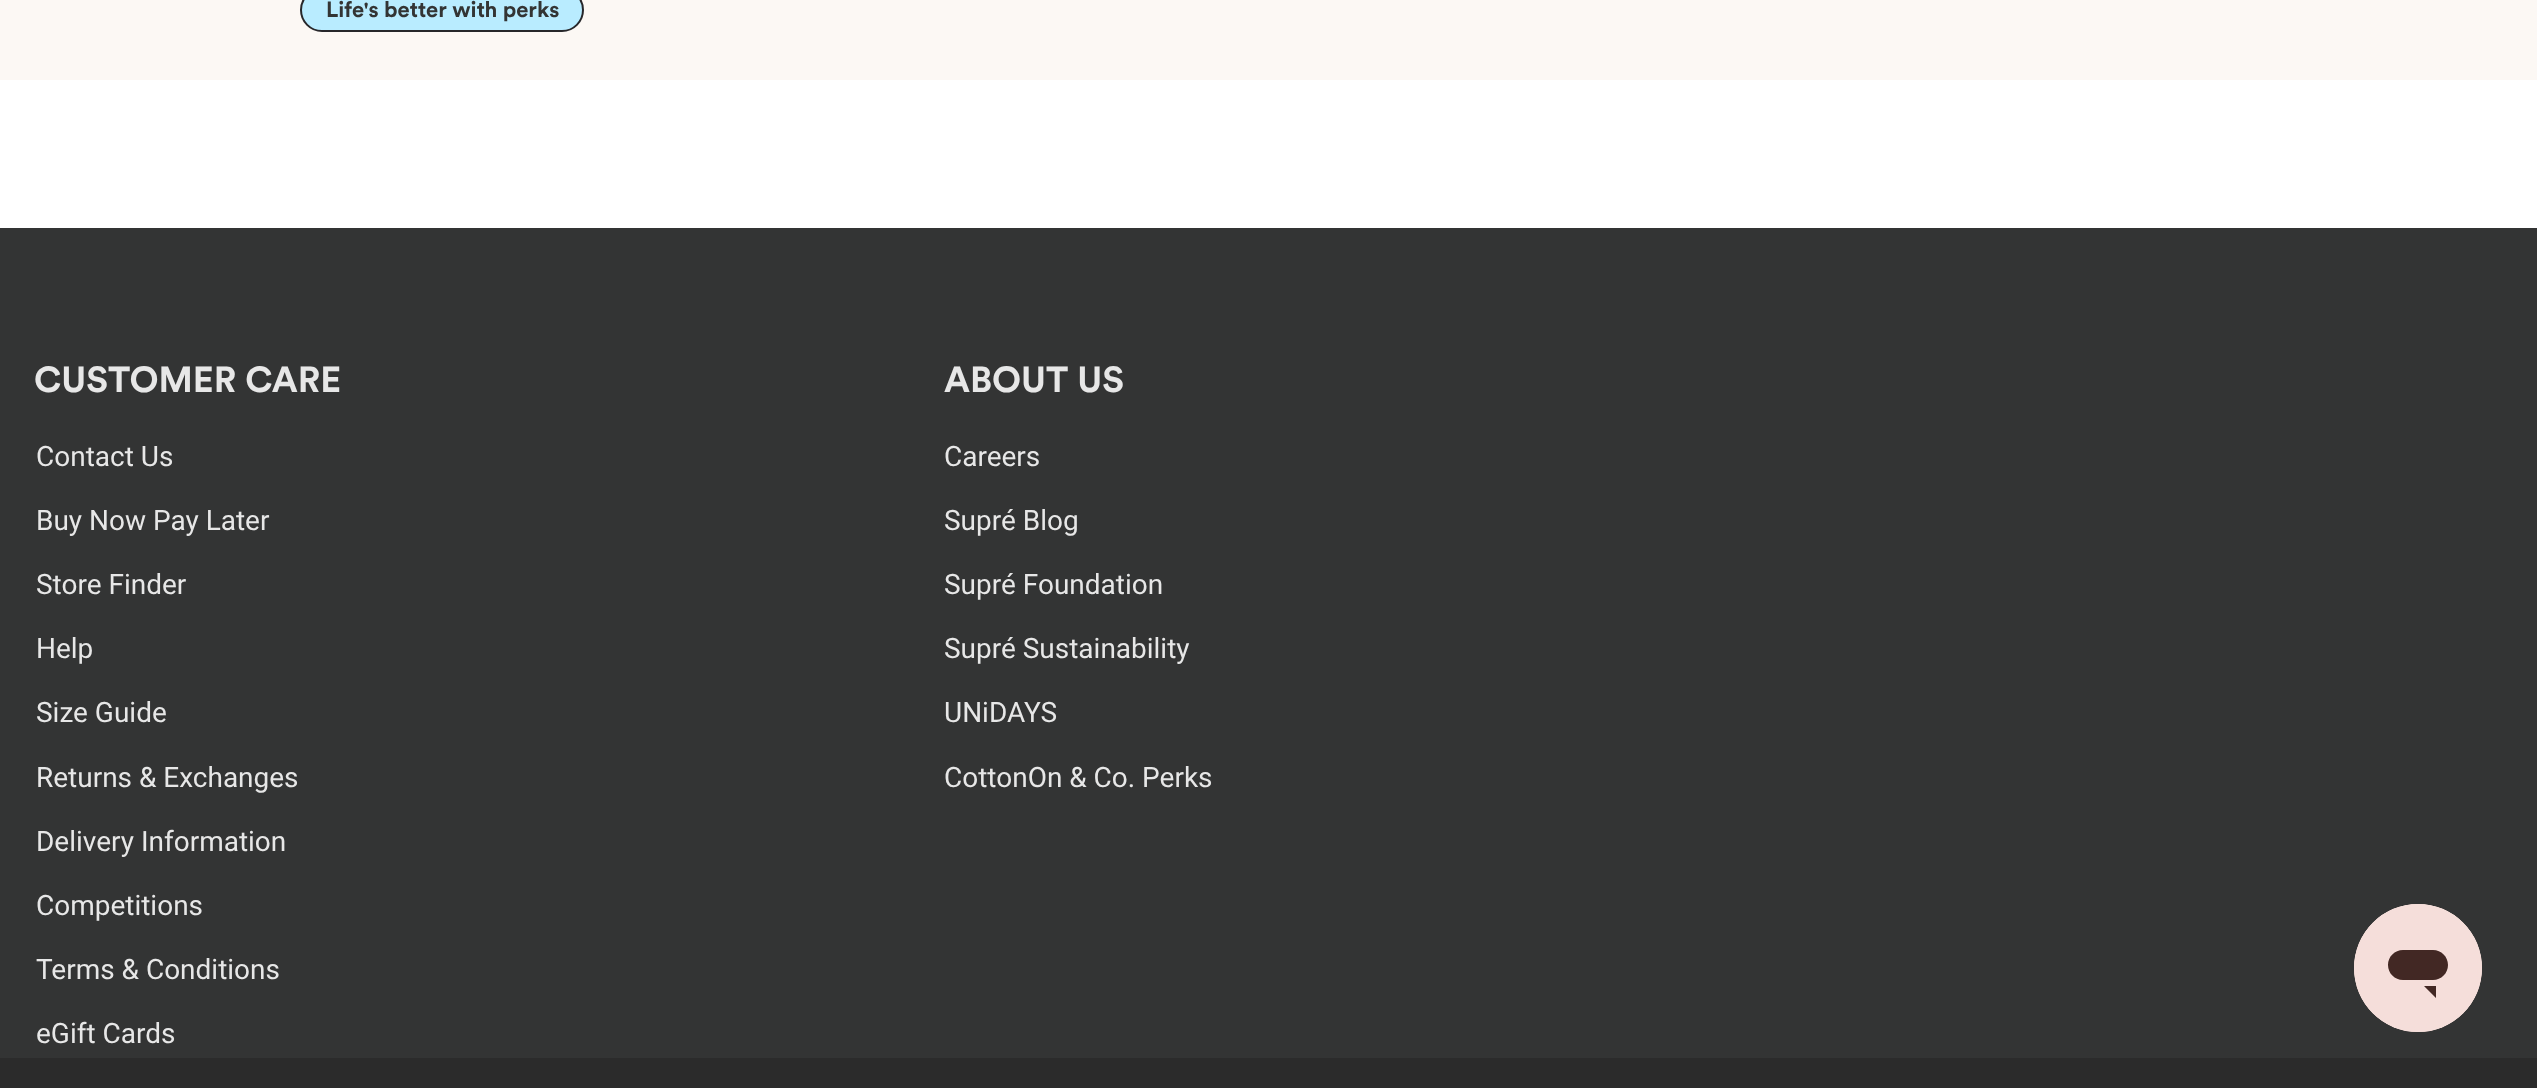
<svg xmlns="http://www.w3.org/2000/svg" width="2537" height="1088">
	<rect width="100%" height="100%" fill="#FFFFFF" />
	<rect x="0" y="0" width="2537" height="80" fill="#FCF8F4" />
	<rect x="301" y="-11" width="282" height="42" rx="21" fill="#B9ECFF" stroke="#27272A" stroke-width="2" />
	<text x="326" y="17" font-family="Circular" font-size="22" font-weight="700" fill="#333434">Life's better with perks</text>
	<rect x="0" y="228" width="2537" height="830" fill="#333434" />
	<text x="34" y="392" font-family="Circular" font-size="36" font-weight="700" fill="#E7E7E7">CUSTOMER CARE</text>
	<g font-family="Roboto" font-size="28" fill="#E7E7E7">
		<text x="36" y="466">Contact Us</text>
		<text x="36" y="530">Buy Now Pay Later</text>
		<text x="36" y="594">Store Finder</text>
		<text x="36" y="658">Help</text>
		<text x="36" y="722">Size Guide</text>
		<text x="36" y="787">Returns &amp; Exchanges</text>
		<text x="36" y="851">Delivery Information</text>
		<text x="36" y="915">Competitions</text>
		<text x="36" y="979">Terms &amp; Conditions</text>
		<text x="36" y="1043">eGift Cards</text>
	</g>
	<text x="944" y="392" font-family="Circular" font-size="36" font-weight="700" fill="#E7E7E7">ABOUT US</text>
	<g font-family="Roboto" font-size="28" fill="#E7E7E7">
		<text x="944" y="466">Careers</text>
		<text x="944" y="530">Supré Blog</text>
		<text x="944" y="594">Supré Foundation</text>
		<text x="944" y="658">Supré Sustainability</text>
		<text x="944" y="722">UNiDAYS</text>
		<text x="944" y="787">CottonOn &amp; Co. Perks</text>
	</g>
	<rect x="0" y="1058" width="2537" height="30" fill="#2B2B2B" />
	<image x="2354" y="904" width="128" height="128" href="assets/img1.png" />
</svg>
